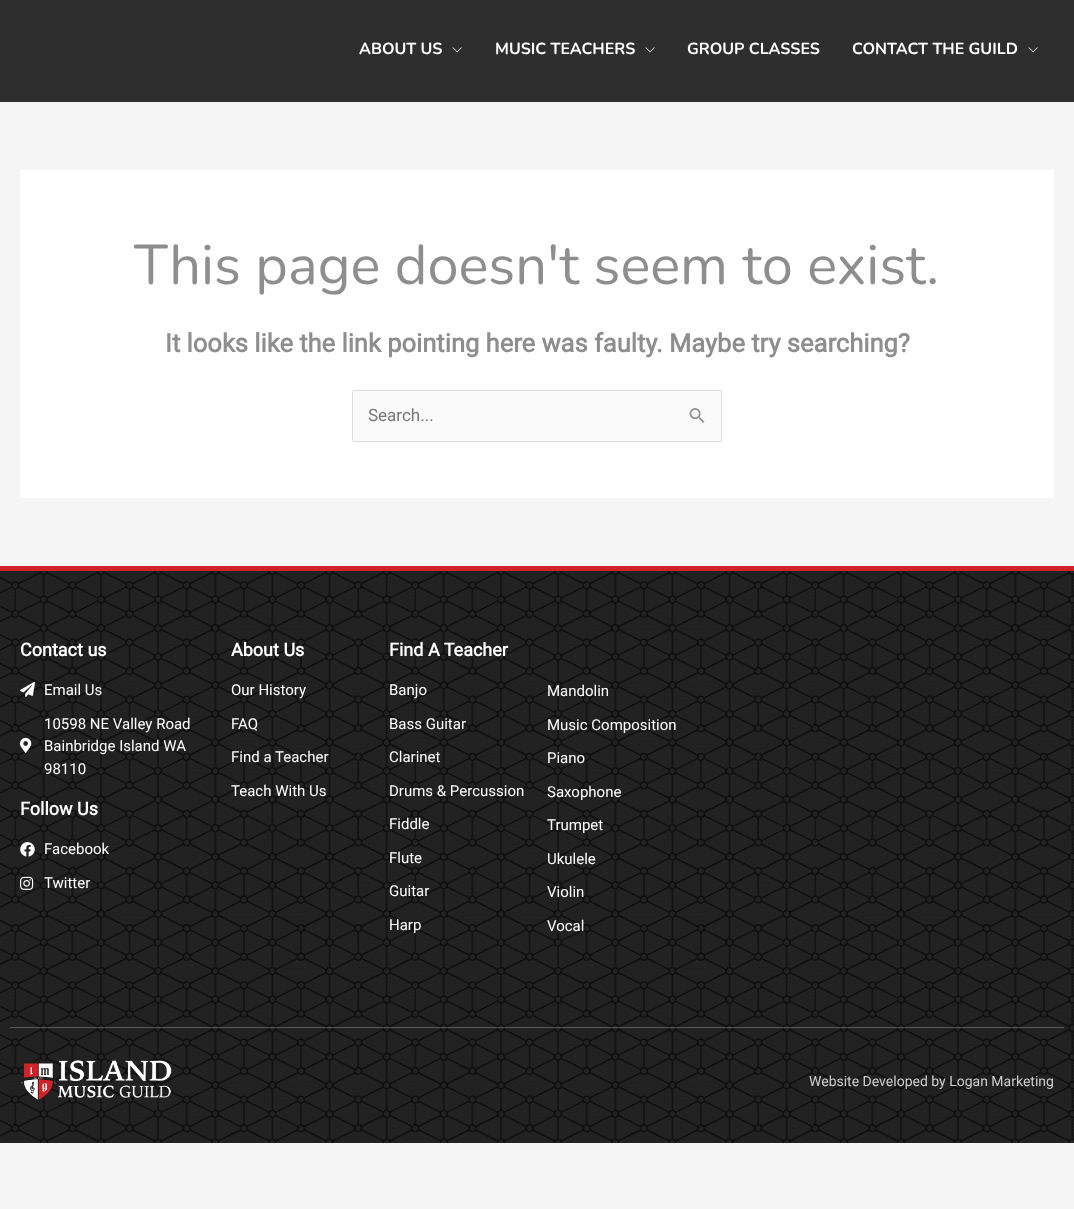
<svg xmlns="http://www.w3.org/2000/svg" width="1074" height="1209">
	<rect width="100%" height="100%" fill="#F5F5F5" />
	<rect x="0" y="0" width="1074" height="102" fill="#2E2E2E" />
	<text x="359" y="54" font-family="Nunito" font-size="16" font-weight="700" fill="#FFFFFF">ABOUT US</text>
	<image x="452" y="47" width="10" height="6" href="assets/img1.png" />
	<text x="495" y="54" font-family="Nunito" font-size="16" font-weight="700" fill="#FFFFFF">MUSIC TEACHERS</text>
	<image x="645" y="47" width="10" height="6" href="assets/img1.png" />
	<g font-family="Nunito" font-size="16" font-weight="700" fill="#FFFFFF">
		<text x="687" y="54">GROUP CLASSES</text>
		<text x="852" y="54">CONTACT THE GUILD</text>
	</g>
	<image x="1028" y="47" width="10" height="6" href="assets/img1.png" />
	<rect x="20" y="170" width="1034" height="328" fill="#FFFFFF" />
	<text x="134" y="284" font-family="Nunito" font-size="56" fill="#8E8E8E">This page doesn't seem to exist.</text>
	<text x="165" y="352" font-family="Roboto" font-size="25.5" font-weight="700" fill="#8E8E8E">It looks like the link pointing here was faulty. Maybe try searching?</text>
	<rect x="352.5" y="390.5" width="369" height="51" rx="1.5" fill="#FAFAFA" stroke="#DDDDDD" />
	<text x="368" y="421" font-family="Roboto" font-size="17" fill="#757575">Search...</text>
	<image x="689" y="408" width="16" height="15" href="assets/img2.png" />
	<image x="0" y="571" width="1074" height="572" href="assets/img3.png" />
	<rect x="0" y="566" width="1074" height="5" fill="#D1222A" />
	<text x="20" y="656" font-family="Roboto" font-size="18" font-weight="700" fill="#FFFFFF">Contact us</text>
	<image x="20" y="681" width="15" height="16" href="assets/img4.png" />
	<text x="44" y="695" font-family="Roboto" font-size="15" fill="#FFFFFF">Email Us</text>
	<image x="20" y="737" width="12" height="16" href="assets/img5.png" />
	<g font-family="Roboto" font-size="15" fill="#FFFFFF">
		<text x="44" y="729">10598 NE Valley Road</text>
		<text x="44" y="751">Bainbridge Island WA</text>
		<text x="44" y="774">98110</text>
	</g>
	<text x="20" y="815" font-family="Roboto" font-size="18" font-weight="700" fill="#FFFFFF">Follow Us</text>
	<image x="20" y="842" width="15" height="15" href="assets/img6.png" />
	<text x="44" y="854" font-family="Roboto" font-size="15" fill="#FFFFFF">Facebook</text>
	<image x="20" y="876" width="14" height="14" href="assets/img7.png" />
	<text x="44" y="888" font-family="Roboto" font-size="15" fill="#FFFFFF">Twitter</text>
	<text x="231" y="656" font-family="Roboto" font-size="18" font-weight="700" fill="#FFFFFF">About Us</text>
	<g font-family="Roboto" font-size="15" fill="#FFFFFF">
		<text x="231" y="695">Our History</text>
		<text x="231" y="729">FAQ</text>
		<text x="231" y="762">Find a Teacher</text>
		<text x="231" y="796">Teach With Us</text>
	</g>
	<text x="389" y="656" font-family="Roboto" font-size="18" font-weight="700" fill="#FFFFFF">Find A Teacher</text>
	<g font-family="Roboto" font-size="15" fill="#FFFFFF">
		<text x="389" y="695">Banjo</text>
		<text x="389" y="729">Bass Guitar</text>
		<text x="389" y="762">Clarinet</text>
		<text x="389" y="796">Drums &amp; Percussion</text>
		<text x="389" y="829">Fiddle</text>
		<text x="389" y="863">Flute</text>
		<text x="389" y="896">Guitar</text>
		<text x="389" y="930">Harp</text>
		<text x="547" y="696">Mandolin</text>
		<text x="547" y="730">Music Composition</text>
		<text x="547" y="763">Piano</text>
		<text x="547" y="797">Saxophone</text>
		<text x="547" y="830">Trumpet</text>
		<text x="547" y="864">Ukulele</text>
		<text x="547" y="897">Violin</text>
		<text x="547" y="931">Vocal</text>
	</g>
	<rect x="10" y="1027" width="1054" height="1" fill="#FFFFFF" fill-opacity="0.25" />
	<image x="21" y="1059" width="151" height="42" href="assets/img8.png" />
	<text x="809" y="1086" font-family="Roboto" font-size="14" fill="#CECECE">Website Developed by Logan Marketing</text>
</svg>
